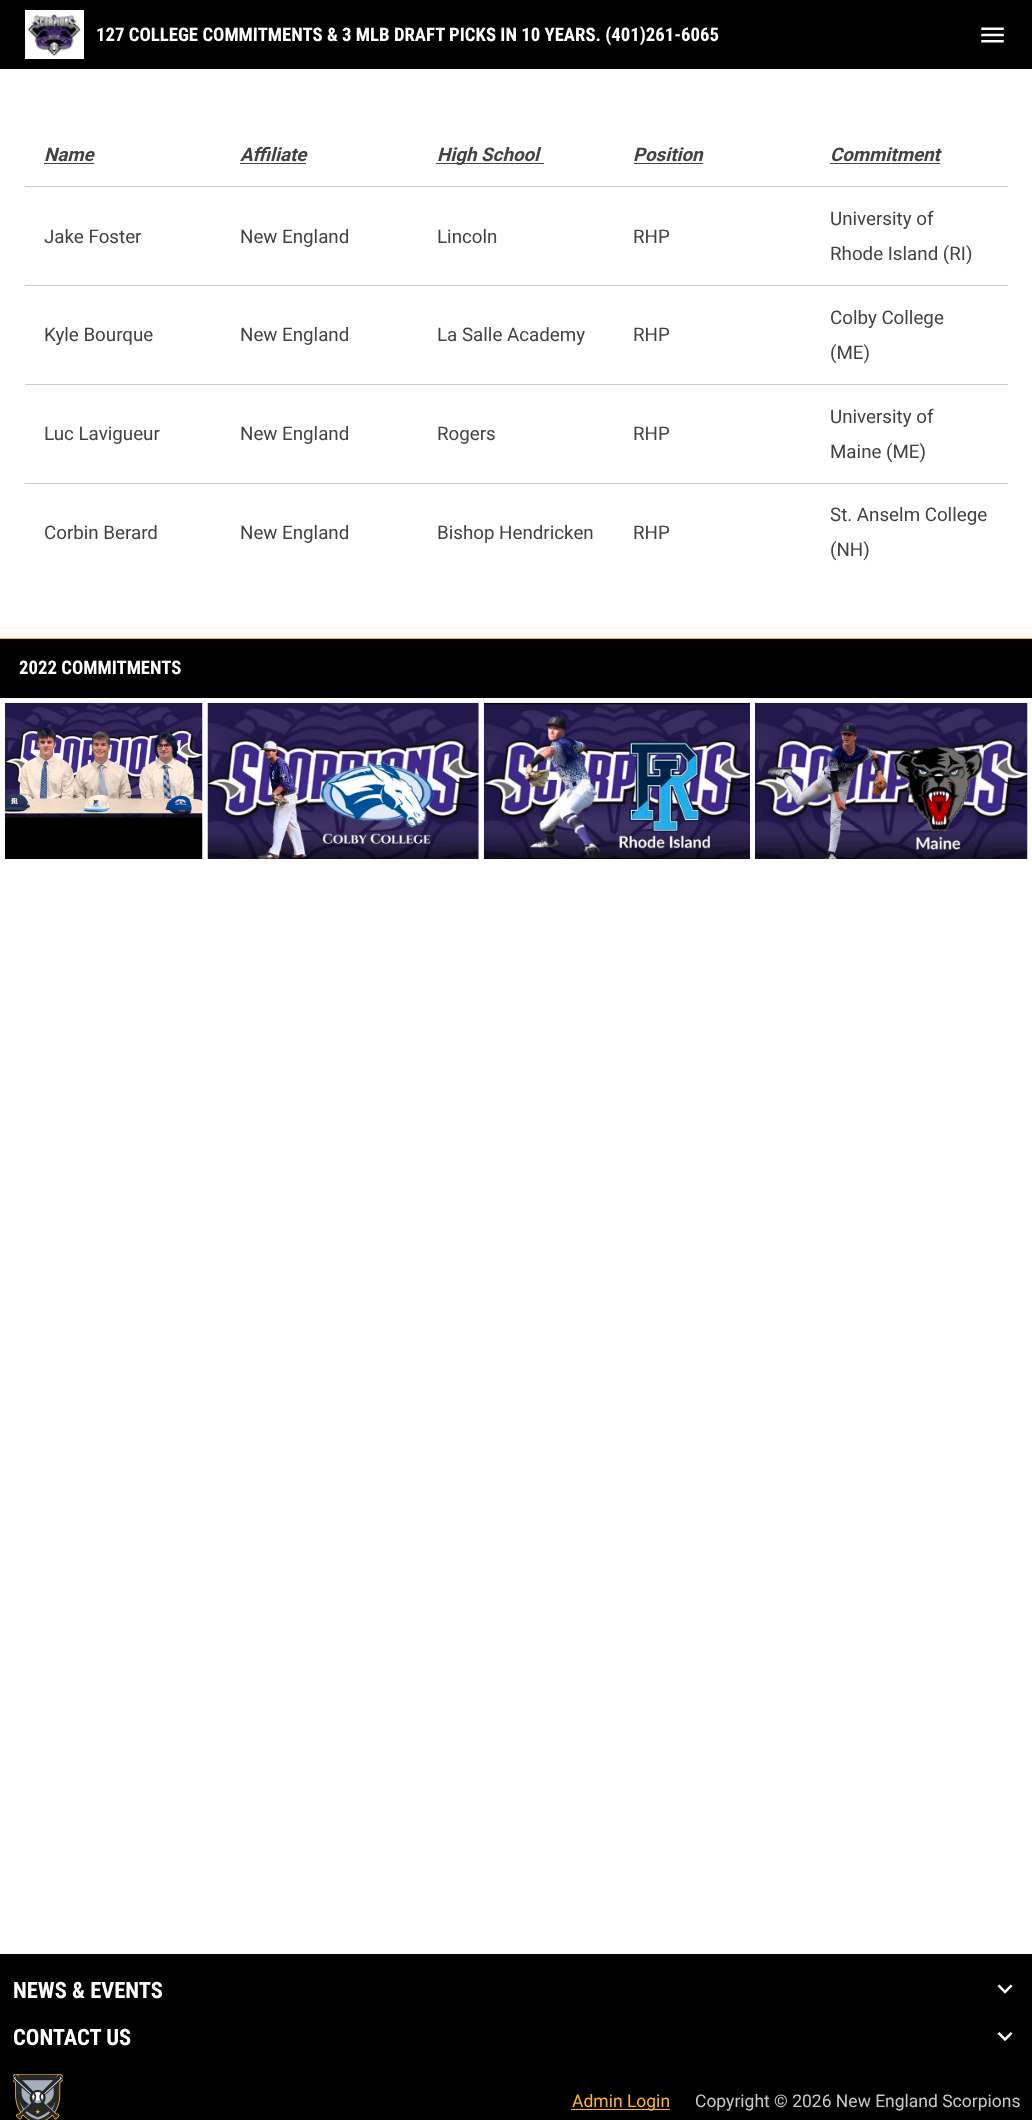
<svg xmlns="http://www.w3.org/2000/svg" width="1032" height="2120">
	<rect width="100%" height="100%" fill="#FFFFFF" />
	<rect x="0" y="0" width="1032" height="69" fill="#000000" />
	<image x="25" y="10" width="59" height="49" href="assets/img1.png" />
	<text x="96" y="41" font-family="Roboto Condensed" font-size="18.75" font-weight="700" fill="#FFFFFF">127 COLLEGE COMMITMENTS &amp; 3 MLB DRAFT PICKS IN 10 YEARS. (401)261-6065</text>
	<image x="981" y="27" width="23" height="16" href="assets/img2.png" />
	<text x="44" y="161" font-family="Roboto" font-size="18.75" font-weight="700" font-style="italic" fill="#424242">Name</text>
	<rect x="44" y="163" width="50" height="1" fill="#424242" />
	<text x="240" y="161" font-family="Roboto" font-size="18.75" font-weight="700" font-style="italic" fill="#424242">Affiliate</text>
	<rect x="240" y="163" width="66" height="1" fill="#424242" />
	<rect x="436" y="163" width="108" height="1" fill="#424242" />
	<g font-family="Roboto" font-size="18.75" font-weight="700" font-style="italic" fill="#424242">
		<text x="437" y="161">High School</text>
		<text x="633" y="161">Position</text>
	</g>
	<rect x="634" y="163" width="69" height="1" fill="#424242" />
	<text x="830" y="161" font-family="Roboto" font-size="18.75" font-weight="700" font-style="italic" fill="#424242">Commitment</text>
	<rect x="830" y="163" width="110" height="1" fill="#424242" />
	<g font-family="Roboto" font-size="18.75" fill="#424242">
		<text x="44" y="243">Jake Foster</text>
		<text x="240" y="243">New England</text>
		<text x="437" y="243">Lincoln</text>
		<text x="633" y="243">RHP</text>
	</g>
	<rect x="25" y="186" width="983" height="1" fill="#CCCCCC" />
	<g font-family="Roboto" font-size="18.75" fill="#424242">
		<text x="830" y="225">University of</text>
		<text x="830" y="260">Rhode Island (RI)</text>
		<text x="44" y="341">Kyle Bourque</text>
		<text x="240" y="341">New England</text>
		<text x="437" y="341">La Salle Academy</text>
		<text x="633" y="341">RHP</text>
	</g>
	<rect x="25" y="285" width="983" height="1" fill="#CCCCCC" />
	<g font-family="Roboto" font-size="18.75" fill="#424242">
		<text x="830" y="324">Colby College</text>
		<text x="830" y="359">(ME)</text>
		<text x="44" y="440">Luc Lavigueur</text>
		<text x="240" y="440">New England</text>
		<text x="437" y="440">Rogers</text>
		<text x="633" y="440">RHP</text>
	</g>
	<rect x="25" y="384" width="983" height="1" fill="#CCCCCC" />
	<g font-family="Roboto" font-size="18.75" fill="#424242">
		<text x="830" y="423">University of</text>
		<text x="830" y="458">Maine (ME)</text>
		<text x="44" y="539">Corbin Berard</text>
		<text x="240" y="539">New England</text>
		<text x="437" y="539">Bishop Hendricken</text>
		<text x="633" y="539">RHP</text>
	</g>
	<rect x="25" y="483" width="983" height="1" fill="#CCCCCC" />
	<g font-family="Roboto" font-size="18.75" fill="#424242">
		<text x="830" y="521">St. Anselm College</text>
		<text x="830" y="556">(NH)</text>
	</g>
	<rect x="0" y="639" width="1032" height="59" fill="#000000" />
	<rect x="0" y="638" width="1032" height="1" fill="#FFB529" />
	<text x="19" y="674" font-family="Roboto Condensed" font-size="18.75" font-weight="700" fill="#FFFFFF">2022 COMMITMENTS</text>
	<image x="5" y="702" width="198" height="157" href="assets/img3.png" />
	<image x="207" y="702" width="272" height="157" href="assets/img4.png" />
	<image x="483" y="702" width="267" height="157" href="assets/img5.png" />
	<image x="755" y="702" width="273" height="157" href="assets/img6.png" />
	<rect x="0" y="1954" width="1032" height="166" fill="#000000" />
	<text x="13" y="1998" font-family="Roboto Condensed" font-size="22.5" font-weight="700" fill="#FFFFFF">NEWS &amp; EVENTS</text>
	<image x="997" y="1984" width="16" height="10" href="assets/img7.png" />
	<text x="13" y="2045" font-family="Roboto Condensed" font-size="22.5" font-weight="700" fill="#FFFFFF">CONTACT US</text>
	<image x="997" y="2032" width="16" height="10" href="assets/img8.png" />
	<image x="13" y="2074" width="50" height="46" href="assets/img9.png" />
	<rect x="571" y="2109" width="99" height="1" fill="#FFB529" />
	<text x="572" y="2107" font-family="Roboto" font-size="17.5" fill="#FFB529">Admin Login</text>
	<text x="695" y="2107" font-family="Roboto" font-size="17.5" fill="#CACACA">Copyright © 2026 New England Scorpions</text>
</svg>
